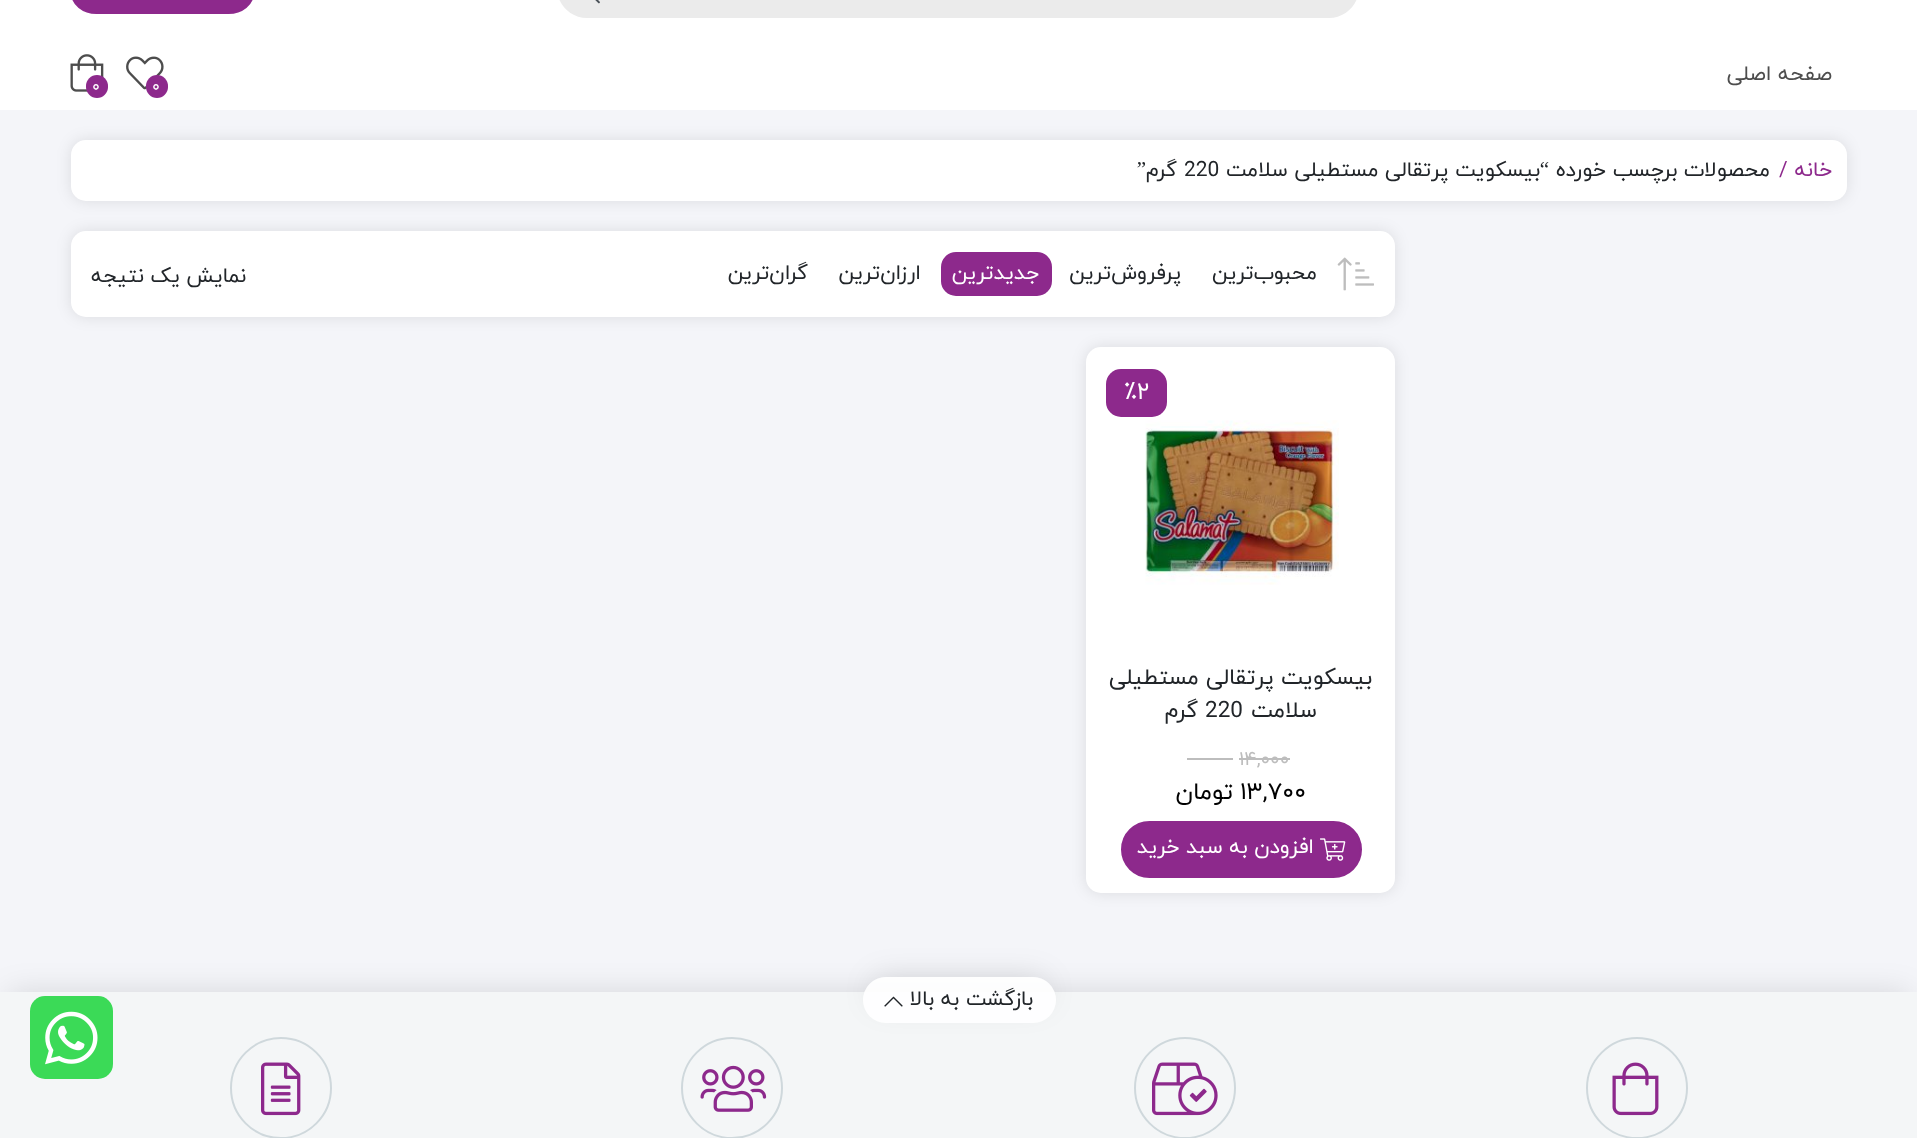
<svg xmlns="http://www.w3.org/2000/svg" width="1917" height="1138">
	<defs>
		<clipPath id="clip1"><path d="M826 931H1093V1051H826ZM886 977H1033C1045.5 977 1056 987.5 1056 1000C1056 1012.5 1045.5 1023 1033 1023H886C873.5 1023 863 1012.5 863 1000C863 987.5 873.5 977 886 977Z" clip-rule="evenodd" /></clipPath>
	</defs>
	<rect width="100%" height="100%" fill="#F4F5F9" />
	<rect x="0" y="0" width="1917" height="110" fill="#FFFFFF" />
	<path d="M1179-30H1329C1345.5-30 1359-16.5 1359 0V-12C1359 4.5 1345.5 18 1329 18H1179Z" fill="#EBEBEB" />
	<rect x="617" y="0" width="562" height="18" fill="#EBEBEB" />
	<path d="M587-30H617V18H587C570.5 18 557 4.5 557-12V0C557-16.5 570.5-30 587-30Z" fill="#EBEBEB" />
	<image x="595" y="0" width="5" height="4" href="assets/img1.png" />
	<rect x="72" y="-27" width="181" height="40" rx="24.5" fill="#8D298C" stroke="#8D298C" stroke-width="2" />
	<text x="1832" y="80" font-family="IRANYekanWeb" font-size="21" direction="rtl" fill="#4D4D4D">صفحه اصلی</text>
	<image x="126" y="56" width="38" height="34" href="assets/img2.png" />
	<rect x="146" y="75" width="22" height="23" rx="11" fill="#8D298C" />
	<text x="152" y="91" font-family="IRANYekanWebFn" font-size="16" fill="#FFFFFF">0</text>
	<image x="70" y="54" width="34" height="38" href="assets/img3.png" />
	<rect x="86" y="75" width="22" height="23" rx="11" fill="#8D298C" />
	<text x="92" y="91" font-family="IRANYekanWebFn" font-size="16" fill="#FFFFFF">0</text>
	<rect x="71" y="140" width="1776" height="61" rx="15" fill="#000000" fill-opacity="0.1" filter="blur(7.5px)" />
	<rect x="71" y="140" width="1776" height="61" rx="15" fill="#FFFFFF" />
	<text x="1832" y="176" font-family="IRANYekanWeb" font-size="21" direction="rtl" fill="#8D298C">خانه</text>
	<text x="1779" y="176" font-family="IRANYekanWeb" font-size="21" fill="#8D298C">/</text>
	<text x="1770" y="176" font-family="IRANYekanWeb" font-size="21" direction="rtl" fill="#212529">محصولات برچسب خورده</text>
	<text x="1549" y="176" font-family="Liberation Serif" font-size="21" direction="rtl" fill="#212529">“</text>
	<text x="1540" y="176" font-family="IRANYekanWeb" font-size="21" direction="rtl" fill="#212529">بیسکویت پرتقالی مستطیلی سلامت</text>
	<text x="1184" y="176" font-family="IRANYekanWeb" font-size="21" fill="#212529">220</text>
	<text x="1177" y="176" font-family="IRANYekanWeb" font-size="21" direction="rtl" fill="#212529">گرم</text>
	<text x="1146" y="176" font-family="Liberation Serif" font-size="21" direction="rtl" fill="#212529">”</text>
	<rect x="71" y="231" width="1324" height="86" rx="15" fill="#000000" fill-opacity="0.1" filter="blur(7.5px)" />
	<rect x="71" y="231" width="1324" height="86" rx="15" fill="#FFFFFF" />
	<image x="1337" y="257" width="37" height="34" href="assets/img4.png" />
	<g font-family="IRANYekanWeb" font-size="21" direction="rtl" fill="#212529">
		<text x="1317" y="279">محبوب‌ترین</text>
		<text x="1181" y="279">پرفروش‌ترین</text>
	</g>
	<rect x="941" y="252" width="111" height="44" rx="15" fill="#8D298C" />
	<text x="1039" y="279" font-family="IRANYekanWeb" font-size="21" direction="rtl" fill="#FFFFFF">جدیدترین</text>
	<g font-family="IRANYekanWeb" font-size="21" direction="rtl" fill="#212529">
		<text x="921" y="279">ارزان‌ترین</text>
		<text x="808" y="279">گران‌ترین</text>
	</g>
	<text x="246" y="282" font-family="IRANYekanWebFn" font-size="21" direction="rtl" fill="#212529">نمایش یک نتیجه</text>
	<rect x="1086" y="347" width="309" height="546" rx="15" fill="#000000" fill-opacity="0.1" filter="blur(7.5px)" />
	<rect x="1086" y="347" width="309" height="546" rx="15" fill="#FFFFFF" />
	<rect x="1106" y="369" width="61" height="48" rx="15" fill="#8D298C" />
	<text x="1124" y="399" font-family="IRANYekanWebFn" font-size="24" fill="#FFFFFF">٪2</text>
	<image x="1145" y="420" width="194" height="165" href="assets/img5.png" />
	<g font-family="IRANYekanWeb" font-size="22.5" direction="rtl" fill="#212529">
		<text x="1372" y="684">بیسکویت پرتقالی مستطیلی</text>
		<text x="1317" y="717">سلامت</text>
	</g>
	<text x="1205" y="717" font-family="IRANYekanWeb" font-size="22.5" fill="#212529">220</text>
	<text x="1198" y="717" font-family="IRANYekanWeb" font-size="22.5" direction="rtl" fill="#212529">گرم</text>
	<text x="1239" y="765" font-family="IRANYekanWebFn" font-size="19.5" fill="#BDBDBD">14,000</text>
	<rect x="1239" y="758" width="51" height="2" fill="#BDBDBD" />
	<rect x="1187" y="758" width="46" height="2" fill="#BDBDBD" />
	<text x="1240" y="799" font-family="IRANYekanWebFn" font-size="24" fill="#000000">13,700</text>
	<text x="1233" y="799" font-family="IRANYekanWebFn" font-size="24" direction="rtl" fill="#000000">تومان</text>
	<rect x="1122" y="822" width="239" height="55" rx="27.5" fill="#8D298C" stroke="#8D298C" stroke-width="2" />
	<image x="1320" y="838" width="26" height="23" href="assets/img6.png" />
	<text x="1314" y="853" font-family="IRANYekanWeb" font-size="21" direction="rtl" fill="#FFFFFF">افزودن به سبد خرید</text>
	<rect x="9" y="992" width="1899" height="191" fill="#000000" fill-opacity="0.12" filter="blur(15px)" />
	<rect x="0" y="992" width="1917" height="146" fill="#F4F6F7" />
	<g clip-path="url(#clip1)">
		<rect x="872" y="977" width="175" height="28" rx="14" fill="#000000" fill-opacity="0.12" filter="blur(15px)" />
	</g>
	<rect x="863" y="977" width="193" height="46" rx="23" fill="#FFFFFF" fill-opacity="0.9" />
	<text x="1033" y="1005" font-family="IRANYekanWeb" font-size="21" direction="rtl" fill="#212529">بازگشت به بالا</text>
	<image x="884" y="996" width="19" height="11" href="assets/img7.png" />
	<circle cx="1637" cy="1088" r="50" fill="none" stroke="#CFD8DC" stroke-width="2" />
	<image x="1612" y="1062" width="47" height="54" href="assets/img8.png" />
	<circle cx="1185" cy="1088" r="50" fill="none" stroke="#CFD8DC" stroke-width="2" />
	<image x="1152" y="1062" width="66" height="54" href="assets/img9.png" />
	<circle cx="732" cy="1088" r="50" fill="none" stroke="#CFD8DC" stroke-width="2" />
	<image x="700" y="1065" width="67" height="47" href="assets/img10.png" />
	<circle cx="281" cy="1088" r="50" fill="none" stroke="#CFD8DC" stroke-width="2" />
	<image x="261" y="1062" width="40" height="54" href="assets/img11.png" />
	<rect x="30" y="996" width="83" height="83" rx="15" fill="#3BDA57" />
	<image x="45" y="1011" width="53" height="54" href="assets/img12.png" />
</svg>
